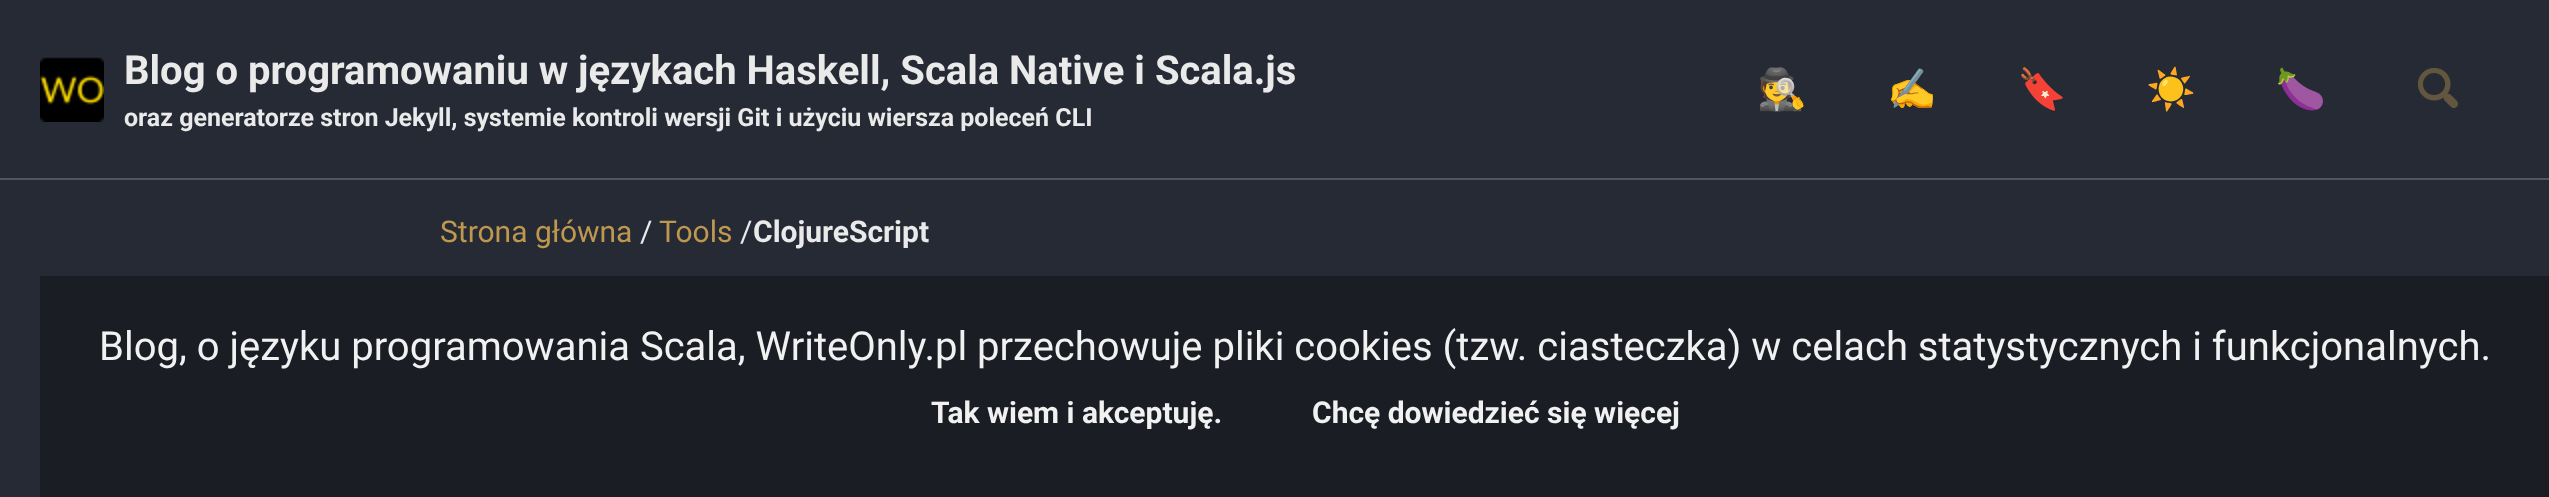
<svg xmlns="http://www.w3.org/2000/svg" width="2549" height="497">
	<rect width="100%" height="100%" fill="#252A34" />
	<rect x="0" y="178" width="2549" height="2" fill="#51555D" />
	<image x="40" y="57" width="64" height="65" href="assets/img1.png" />
	<text x="124" y="84" font-family="Roboto" font-size="40" font-weight="700" fill="#EAEAEA">Blog o programowaniu w językach Haskell, Scala Native i Scala.js</text>
	<text x="124" y="126" font-family="Roboto" font-size="25" font-weight="700" fill="#EAEAEA">oraz generatorze stron Jekyll, systemie kontroli wersji Git i użyciu wiersza poleceń CLI</text>
	<g font-family="Noto Color Emoji" font-size="40" fill="#EAEAEA">
		<text x="1757" y="103">🕵️</text>
		<text x="1887" y="103">✍️</text>
		<text x="2017" y="103">🔖</text>
		<text x="2146" y="103">☀️</text>
		<text x="2276" y="103">🍆</text>
	</g>
	<image x="2418" y="67" width="40" height="41" href="assets/img2.png" />
	<text x="440" y="242" font-family="Roboto" font-size="30" fill="#BF9850">Strona główna</text>
	<text x="640" y="242" font-family="Roboto" font-size="30" fill="#EAEAEA">/</text>
	<text x="659" y="242" font-family="Roboto" font-size="30" fill="#BF9850">Tools</text>
	<text x="740" y="242" font-family="Roboto" font-size="30" fill="#EAEAEA">/</text>
	<text x="753" y="242" font-family="Roboto" font-size="30" font-weight="700" fill="#EAEAEA">ClojureScript</text>
	<rect x="40" y="276" width="2509" height="221" fill="#1A1D24" />
	<text x="99" y="360" font-family="Roboto" font-size="40" fill="#F1F1F1">Blog, o języku programowania Scala, WriteOnly.pl przechowuje pliki cookies (tzw. ciasteczka) w celach statystycznych i funkcjonalnych.</text>
	<g font-family="Roboto" font-size="30" font-weight="700" fill="#F1F1F1">
		<text x="931" y="423">Tak wiem i akceptuję.</text>
		<text x="1312" y="423">Chcę dowiedzieć się więcej</text>
	</g>
</svg>
